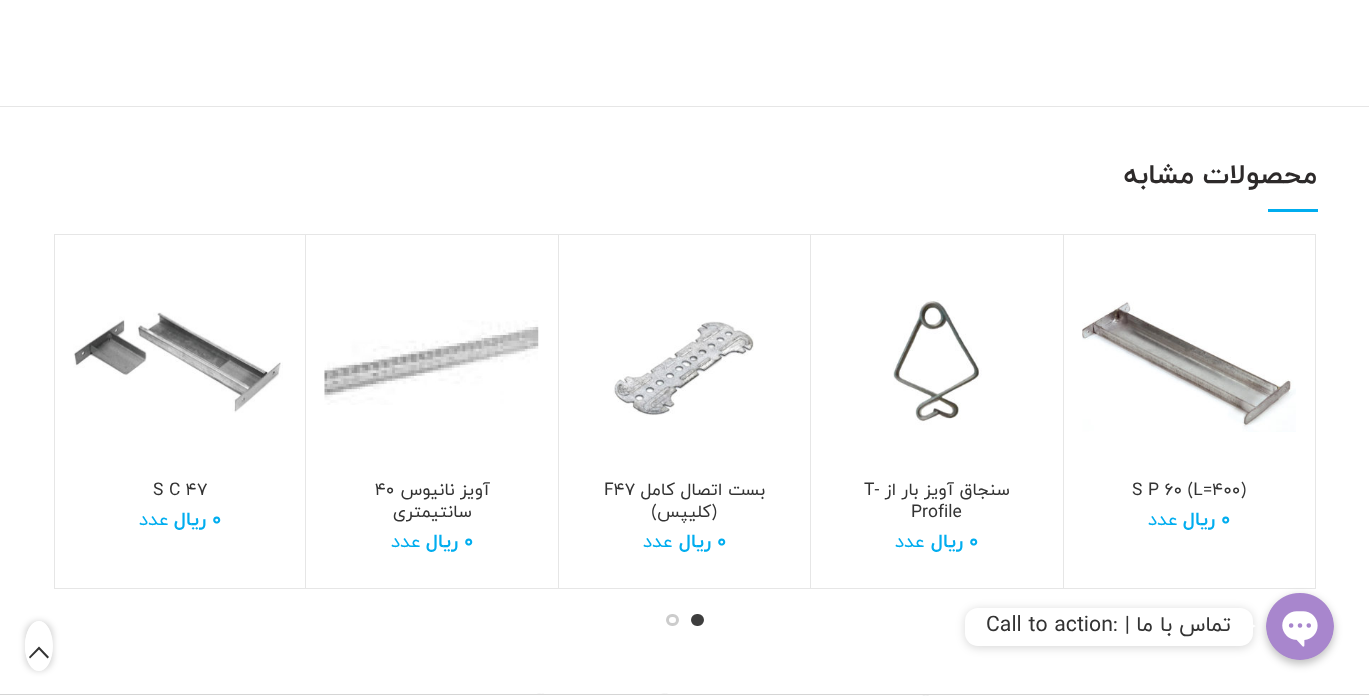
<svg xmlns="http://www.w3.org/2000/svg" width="1369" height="696">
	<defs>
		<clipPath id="clip1"><path d="M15 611H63V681H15ZM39 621C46.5 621 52.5 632.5 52.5 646C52.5 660 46.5 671 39 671C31 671 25 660 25 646C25 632.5 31 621 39 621Z" clip-rule="evenodd" /></clipPath>
	</defs>
	<rect width="100%" height="100%" fill="#FFFFFF" />
	<rect x="0" y="106" width="1369" height="1" fill="#E6E6E6" />
	<text x="1317" y="183" font-family="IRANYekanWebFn" font-size="27.5" font-weight="700" direction="rtl" fill="#2D2A2A">محصولات مشابه</text>
	<rect x="1268" y="209" width="50" height="3" fill="#00ADEF" />
	<rect x="54.5" y="234.5" width="1261" height="354" fill="none" stroke="#E6E6E6" />
	<rect x="1063" y="235" width="1" height="353" fill="#E6E6E6" />
	<image x="1082" y="301" width="214" height="131" href="assets/img1.png" />
	<text x="1132" y="495" font-family="IRANYekanWebFn" font-size="17.5" fill="#333333">S P 60 (L=400)</text>
	<text x="1221" y="525" font-family="IRANYekanWebFn" font-size="19" font-weight="700" fill="#00ADEF">0</text>
	<text x="1215" y="525" font-family="IRANYekanWebFn" font-size="19" font-weight="700" direction="rtl" fill="#00ADEF">ریال</text>
	<text x="1178" y="525" font-family="IRANYekanWebFn" font-size="19" direction="rtl" fill="#00ADEF">عدد</text>
	<rect x="810" y="235" width="1" height="353" fill="#E6E6E6" />
	<image x="893" y="300" width="89" height="125" href="assets/img2.png" />
	<text x="1010" y="495" font-family="IRANYekanWebFn" font-size="17.5" direction="rtl" fill="#333333">سنجاق آویز بار از</text>
	<g font-family="IRANYekanWebFn" font-size="17.5" fill="#333333">
		<text x="864" y="495">T-</text>
		<text x="911" y="517">Profile</text>
	</g>
	<text x="969" y="547" font-family="IRANYekanWebFn" font-size="19" font-weight="700" fill="#00ADEF">0</text>
	<text x="963" y="547" font-family="IRANYekanWebFn" font-size="19" font-weight="700" direction="rtl" fill="#00ADEF">ریال</text>
	<text x="925" y="547" font-family="IRANYekanWebFn" font-size="19" direction="rtl" fill="#00ADEF">عدد</text>
	<rect x="558" y="235" width="1" height="353" fill="#E6E6E6" />
	<image x="613" y="321" width="141" height="95" href="assets/img3.png" />
	<text x="765" y="495" font-family="IRANYekanWebFn" font-size="17.5" direction="rtl" fill="#333333">بست اتصال کامل</text>
	<text x="604" y="495" font-family="IRANYekanWebFn" font-size="17.5" fill="#333333">F47</text>
	<text x="717" y="517" font-family="IRANYekanWebFn" font-size="17.5" direction="rtl" fill="#333333">(کلیپس)</text>
	<text x="717" y="547" font-family="IRANYekanWebFn" font-size="19" font-weight="700" fill="#00ADEF">0</text>
	<text x="711" y="547" font-family="IRANYekanWebFn" font-size="19" font-weight="700" direction="rtl" fill="#00ADEF">ریال</text>
	<text x="673" y="547" font-family="IRANYekanWebFn" font-size="19" direction="rtl" fill="#00ADEF">عدد</text>
	<rect x="305" y="235" width="1" height="353" fill="#E6E6E6" />
	<image x="324" y="320" width="215" height="85" href="assets/img4.png" />
	<text x="490" y="495" font-family="IRANYekanWebFn" font-size="17.5" direction="rtl" fill="#333333">آویز نانیوس</text>
	<text x="375" y="495" font-family="IRANYekanWebFn" font-size="17.5" fill="#333333">40</text>
	<text x="472" y="517" font-family="IRANYekanWebFn" font-size="17.5" direction="rtl" fill="#333333">سانتیمتری</text>
	<text x="464" y="547" font-family="IRANYekanWebFn" font-size="19" font-weight="700" fill="#00ADEF">0</text>
	<text x="458" y="547" font-family="IRANYekanWebFn" font-size="19" font-weight="700" direction="rtl" fill="#00ADEF">ریال</text>
	<text x="421" y="547" font-family="IRANYekanWebFn" font-size="19" direction="rtl" fill="#00ADEF">عدد</text>
	<image x="73" y="312" width="210" height="101" href="assets/img5.png" />
	<text x="153" y="495" font-family="IRANYekanWebFn" font-size="17.5" fill="#333333">S C 47</text>
	<text x="212" y="525" font-family="IRANYekanWebFn" font-size="19" font-weight="700" fill="#00ADEF">0</text>
	<text x="206" y="525" font-family="IRANYekanWebFn" font-size="19" font-weight="700" direction="rtl" fill="#00ADEF">ریال</text>
	<text x="169" y="525" font-family="IRANYekanWebFn" font-size="19" direction="rtl" fill="#00ADEF">عدد</text>
	<rect x="692.5" y="615.5" width="10" height="9" rx="4.5" fill="#3E3E3E" stroke="#3E3E3E" stroke-width="3" />
	<rect x="667.5" y="615.5" width="10" height="9" rx="4.5" fill="none" stroke="#CCCCCC" stroke-width="3" />
	<image x="537" y="693" width="392" height="3" href="assets/img6.png" />
	<rect x="0" y="694" width="1369" height="1" fill="#D5D5D5" />
	<rect x="1266" y="596" width="68" height="68" rx="34" fill="#000000" fill-opacity="0.25" filter="blur(4px)" />
	<image x="1266" y="593" width="68" height="67" href="assets/img7.png" />
	<rect x="965" y="609" width="288" height="39" rx="13" fill="#000000" fill-opacity="0.15" filter="blur(5px)" />
	<rect x="965" y="608" width="288" height="38" rx="13" fill="#FFFFFF" />
	<path d="M1244 632.5V620L1256 626Z" fill="#FFFFFF" />
	<text x="1231" y="631" font-family="IRANYekanWebFn" font-size="21.25" direction="rtl" fill="#333333">تماس با ما</text>
	<text x="986" y="631" font-family="IRANYekanWebFn" font-size="21.25" fill="#333333">Call to action: |</text>
	<g clip-path="url(#clip1)">
		<rect x="25" y="621" width="28" height="50" rx="14" fill="#000000" fill-opacity="0.17" filter="blur(3px)" />
	</g>
	<ellipse cx="39" cy="646" rx="14" ry="25" fill="#FFFFFF" fill-opacity="0.9" />
	<path d="M39 646.5L49 657L47.5 658.5L39 649.5L30 658.5L29 657Z" fill="#333333" />
</svg>
